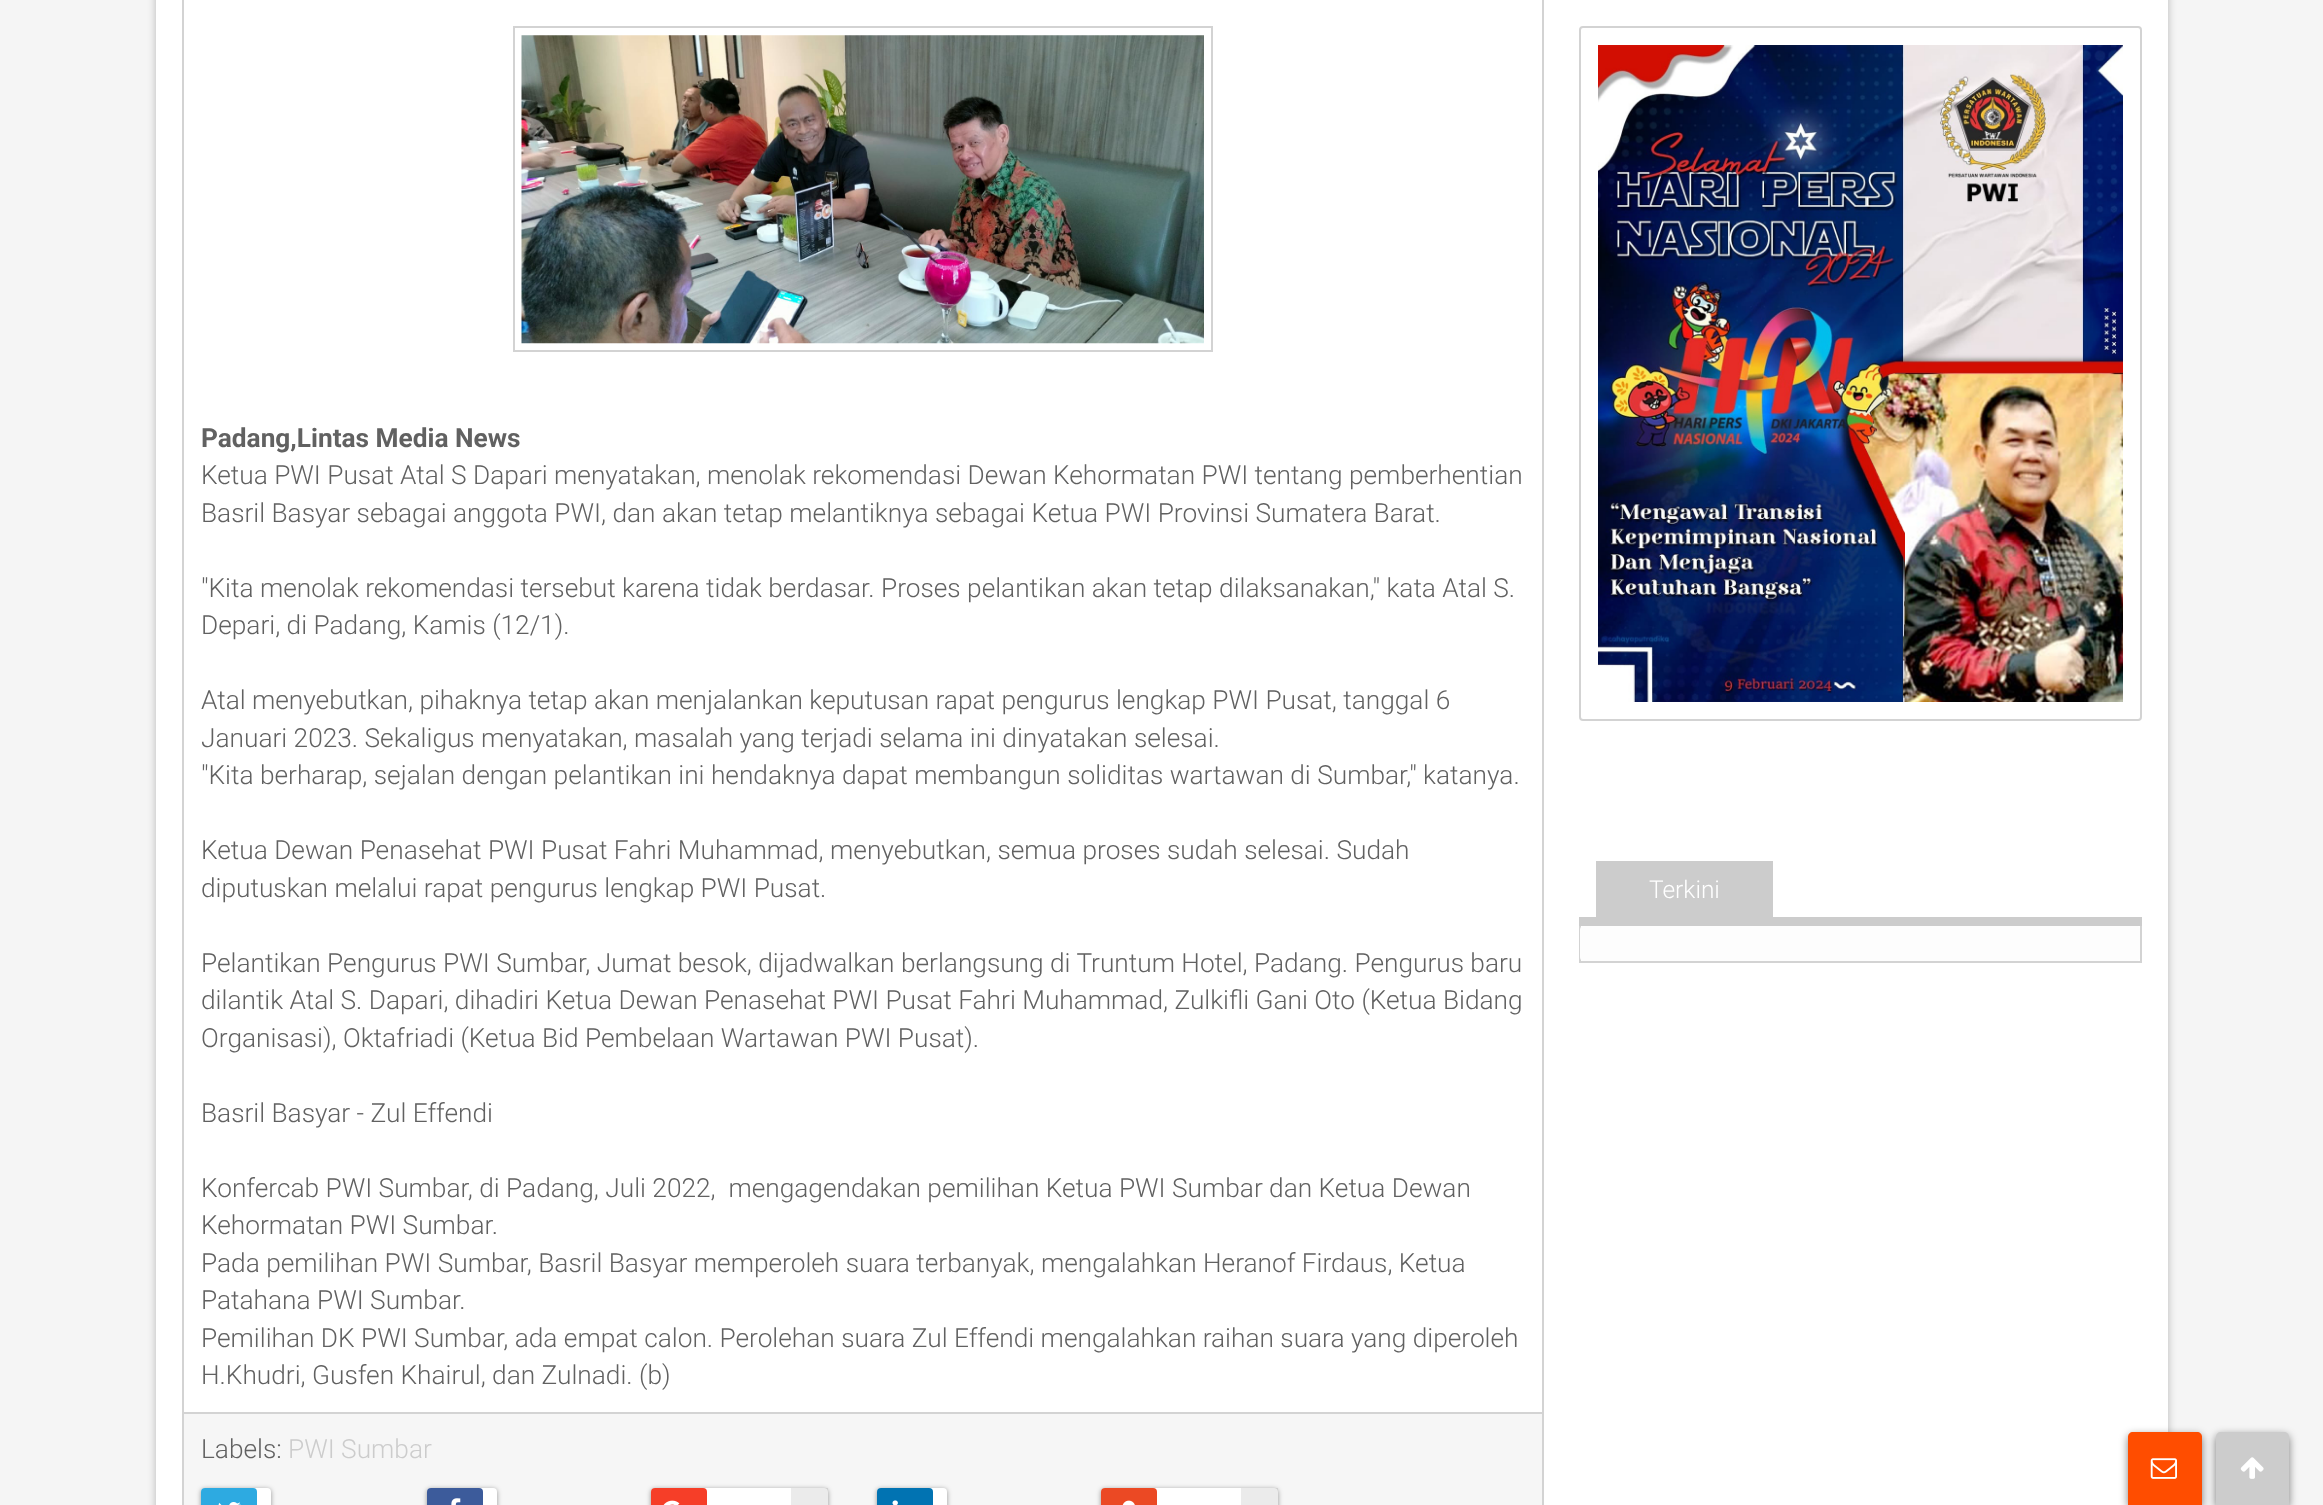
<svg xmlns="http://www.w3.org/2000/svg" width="2323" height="1505">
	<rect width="100%" height="100%" fill="#F5F5F5" />
	<rect x="156" y="-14" width="2012" height="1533" fill="#000000" fill-opacity="0.25" filter="blur(4.5px)" />
	<rect x="156" y="0" width="2012" height="1505" fill="#FFFFFF" />
	<rect x="183" y="-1" width="1360" height="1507" fill="none" stroke="#D3D3D3" stroke-width="2" />
	<rect x="514" y="27" width="698" height="324" fill="none" stroke="#D3D3D3" stroke-width="2" />
	<image x="521" y="35" width="683" height="309" href="assets/img1.png" />
	<text x="201" y="447" font-family="Roboto" font-size="26.25" font-weight="700" fill="#616161">Padang,Lintas Media News</text>
	<g font-family="Roboto" font-size="26.25" font-weight="300" fill="#616161">
		<text x="201" y="484">Ketua PWI Pusat Atal S Dapari menyatakan, menolak rekomendasi Dewan Kehormatan PWI tentang pemberhentian</text>
		<text x="201" y="522">Basril Basyar sebagai anggota PWI, dan akan tetap melantiknya sebagai Ketua PWI Provinsi Sumatera Barat.</text>
		<text x="201" y="597">"Kita menolak rekomendasi tersebut karena tidak berdasar. Proses pelantikan akan tetap dilaksanakan," kata Atal S.</text>
		<text x="201" y="634">Depari, di Padang, Kamis (12/1).</text>
		<text x="201" y="709">Atal menyebutkan, pihaknya tetap akan menjalankan keputusan rapat pengurus lengkap PWI Pusat, tanggal 6</text>
		<text x="201" y="747">Januari 2023. Sekaligus menyatakan, masalah yang terjadi selama ini dinyatakan selesai.</text>
		<text x="201" y="784">"Kita berharap, sejalan dengan pelantikan ini hendaknya dapat membangun soliditas wartawan di Sumbar," katanya.</text>
		<text x="201" y="859">Ketua Dewan Penasehat PWI Pusat Fahri Muhammad, menyebutkan, semua proses sudah selesai. Sudah</text>
		<text x="201" y="897">diputuskan melalui rapat pengurus lengkap PWI Pusat.</text>
		<text x="201" y="972">Pelantikan Pengurus PWI Sumbar, Jumat besok, dijadwalkan berlangsung di Truntum Hotel, Padang. Pengurus baru</text>
		<text x="201" y="1009">dilantik Atal S. Dapari, dihadiri Ketua Dewan Penasehat PWI Pusat Fahri Muhammad, Zulkifli Gani Oto (Ketua Bidang</text>
		<text x="201" y="1047">Organisasi), Oktafriadi (Ketua Bid Pembelaan Wartawan PWI Pusat).</text>
		<text x="201" y="1122">Basril Basyar - Zul Effendi</text>
		<text x="201" y="1197" xml:space="preserve">Konfercab PWI Sumbar, di Padang, Juli 2022,  mengagendakan pemilihan Ketua PWI Sumbar dan Ketua Dewan</text>
		<text x="201" y="1234">Kehormatan PWI Sumbar.</text>
		<text x="201" y="1272">Pada pemilihan PWI Sumbar, Basril Basyar memperoleh suara terbanyak, mengalahkan Heranof Firdaus, Ketua</text>
		<text x="201" y="1309">Patahana PWI Sumbar.</text>
		<text x="201" y="1347">Pemilihan DK PWI Sumbar, ada empat calon. Perolehan suara Zul Effendi mengalahkan raihan suara yang diperoleh</text>
		<text x="201" y="1384">H.Khudri, Gusfen Khairul, dan Zulnadi. (b)</text>
	</g>
	<rect x="184" y="1414" width="1358" height="91" fill="#F6F6F6" />
	<rect x="184" y="1412" width="1358" height="2" fill="#D3D3D3" />
	<text x="201" y="1458" font-family="Roboto" font-size="26.25" font-weight="300" fill="#616161">Labels:</text>
	<text x="288" y="1458" font-family="Roboto" font-size="26.25" font-weight="300" fill="#CCCCCC">PWI Sumbar</text>
	<rect x="201" y="1489" width="70" height="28" rx="4" fill="#000000" fill-opacity="0.4" filter="blur(2.5px)" />
	<rect x="201" y="1488" width="70" height="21" rx="4" fill="#FFFFFF" />
	<rect x="201" y="1488" width="56" height="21" rx="4" fill="#2DAAE1" />
	<image x="218" y="1502" width="23" height="3" href="assets/img2.png" />
	<rect x="427" y="1489" width="70" height="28" rx="4" fill="#000000" fill-opacity="0.4" filter="blur(2.5px)" />
	<rect x="427" y="1488" width="70" height="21" rx="4" fill="#FFFFFF" />
	<rect x="427" y="1488" width="56" height="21" rx="4" fill="#3C5B9B" />
	<image x="451" y="1498" width="10" height="7" href="assets/img3.png" />
	<rect x="651" y="1489" width="177" height="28" rx="4" fill="#000000" fill-opacity="0.4" filter="blur(2.5px)" />
	<rect x="651" y="1488" width="177" height="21" rx="4" fill="#FFFFFF" />
	<rect x="791" y="1488" width="37" height="17" fill="#000000" fill-opacity="0.08" />
	<rect x="651" y="1488" width="56" height="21" rx="4" fill="#F63E28" />
	<image x="663" y="1500" width="17" height="5" href="assets/img4.png" />
	<rect x="877" y="1489" width="70" height="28" rx="4" fill="#000000" fill-opacity="0.4" filter="blur(2.5px)" />
	<rect x="877" y="1488" width="70" height="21" rx="4" fill="#FFFFFF" />
	<rect x="877" y="1488" width="56" height="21" rx="4" fill="#0173B2" />
	<image x="892" y="1500" width="6" height="5" href="assets/img5.png" />
	<rect x="1101" y="1489" width="177" height="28" rx="4" fill="#000000" fill-opacity="0.4" filter="blur(2.5px)" />
	<rect x="1101" y="1488" width="177" height="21" rx="4" fill="#FFFFFF" />
	<rect x="1241" y="1488" width="37" height="17" fill="#000000" fill-opacity="0.08" />
	<rect x="1101" y="1488" width="56" height="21" rx="4" fill="#EB4924" />
	<image x="1122" y="1500" width="13" height="5" href="assets/img6.png" />
	<rect x="1580" y="27" width="561" height="693" rx="3" fill="none" stroke="#D3D3D3" stroke-width="2" />
	<image x="1598" y="45" width="525" height="657" href="assets/img7.png" />
	<rect x="1579" y="917" width="563" height="9" fill="#CCCCCC" />
	<rect x="1596" y="861" width="177" height="56" fill="#CCCCCC" />
	<text x="1649" y="898" font-family="Roboto" font-size="24.5" font-weight="300" fill="#FFFFFF">Terkini</text>
	<rect x="2140" y="926" width="2" height="37" fill="#D3D3D3" />
	<rect x="1579" y="961" width="563" height="2" fill="#D3D3D3" />
	<rect x="1579" y="926" width="2" height="37" fill="#D3D3D3" />
	<rect x="1580" y="926" width="560" height="35" rx="4" fill="#FDFDFD" />
	<rect x="2216" y="1435" width="73" height="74" rx="5" fill="#000000" fill-opacity="0.5" filter="blur(4.5px)" />
	<path d="M2221 1432H2284C2287 1432 2289 1434 2289 1437V1505H2216V1437C2216 1434 2218 1432 2221 1432Z" fill="#CCCCCC" />
	<rect x="2128" y="1435" width="74" height="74" rx="5" fill="#000000" fill-opacity="0.5" filter="blur(4.5px)" />
	<path d="M2133 1432H2197C2200 1432 2202 1434 2202 1437V1505H2128V1437C2128 1434 2130 1432 2133 1432Z" fill="#FF4D00" />
	<image x="2150" y="1458" width="27" height="21" href="assets/img8.png" />
	<image x="2240" y="1457" width="24" height="22" href="assets/img9.png" />
</svg>
